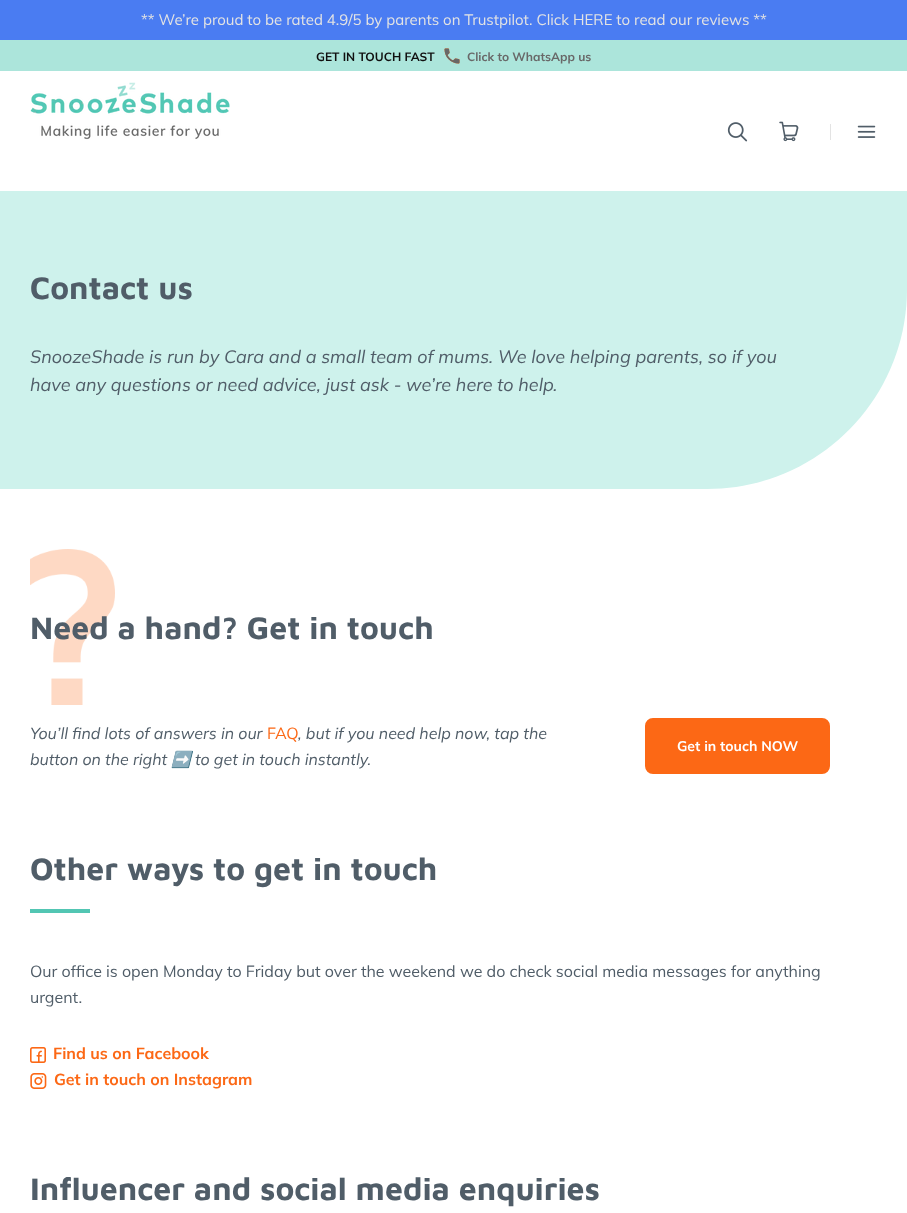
<svg xmlns="http://www.w3.org/2000/svg" width="907" height="1213">
	<rect width="100%" height="100%" fill="#FFFFFF" />
	<rect x="0" y="0" width="907" height="40" fill="#4A7CF2" />
	<text x="141" y="25" font-family="Muli" font-size="15" fill="#E3E3E3">** We’re proud to be rated 4.9/5 by parents on Trustpilot. Click HERE to read our reviews **</text>
	<rect x="0" y="40" width="907" height="31" fill="#ACE5DB" />
	<text x="316" y="61" font-family="Muli" font-size="12" font-weight="700" fill="#100F0F">GET IN TOUCH FAST</text>
	<image x="444" y="48" width="16" height="16" href="assets/img1.png" />
	<text x="467" y="61" font-family="Muli" font-size="12" font-weight="700" fill="#686868">Click to WhatsApp us</text>
	<image x="30" y="82" width="200" height="58" href="assets/img2.png" />
	<image x="727" y="122" width="21" height="20" href="assets/img3.png" />
	<image x="779" y="121" width="20" height="21" href="assets/img4.png" />
	<rect x="830" y="124" width="1" height="16" fill="#E3E3E3" />
	<image x="857" y="125" width="19" height="13" href="assets/img5.png" />
	<path d="M0 191H907V289C907 399.5 817.5 489 707 489H0Z" fill="#CEF2EC" />
	<text x="30" y="299" font-family="Maven Pro" font-size="32" font-weight="700" fill="#505D68">Contact us</text>
	<g font-family="Muli" font-size="18" font-style="italic" fill="#505D68">
		<text x="30" y="363">SnoozeShade is run by Cara and a small team of mums. We love helping parents, so if you</text>
		<text x="30" y="391">have any questions or need advice, just ask - we’re here to help.</text>
	</g>
	<image x="30" y="549" width="85" height="156" href="assets/img6.png" />
	<text x="30" y="639" font-family="Maven Pro" font-size="32" font-weight="700" fill="#505D68">Need a hand? Get in touch</text>
	<text x="30" y="739" font-family="Muli" font-size="16" font-style="italic" fill="#505D68">You’ll find lots of answers in our</text>
	<text x="267" y="739" font-family="Muli" font-size="16" fill="#FC6815">FAQ</text>
	<g font-family="Muli" font-size="16" font-style="italic" fill="#505D68">
		<text x="298" y="739">, but if you need help now, tap the</text>
		<text x="30" y="765">button on the right</text>
	</g>
	<text x="171" y="765" font-family="Noto Color Emoji" font-size="16" font-style="italic" fill="#505D68">➡️</text>
	<text x="195" y="765" font-family="Muli" font-size="16" font-style="italic" fill="#505D68">to get in touch instantly.</text>
	<rect x="646" y="719" width="183" height="54" rx="7" fill="#FC6815" stroke="#FC6815" stroke-width="2" />
	<text x="677" y="751" font-family="Muli" font-size="14" font-weight="700" fill="#FFFFFF">Get in touch NOW</text>
	<text x="30" y="880" font-family="Maven Pro" font-size="32" font-weight="700" fill="#505D68">Other ways to get in touch</text>
	<rect x="30" y="909" width="60" height="4" fill="#52C6B3" />
	<g font-family="Muli" font-size="16" fill="#505D68">
		<text x="30" y="977">Our office is open Monday to Friday but over the weekend we do check social media messages for anything</text>
		<text x="30" y="1003">urgent.</text>
	</g>
	<image x="30" y="1047" width="16" height="16" href="assets/img7.png" />
	<text x="53" y="1059" font-family="Muli" font-size="16" font-weight="700" fill="#FC6815">Find us on Facebook</text>
	<image x="30" y="1073" width="17" height="16" href="assets/img8.png" />
	<text x="54" y="1085" font-family="Muli" font-size="16" font-weight="700" fill="#FC6815">Get in touch on Instagram</text>
	<text x="30" y="1200" font-family="Maven Pro" font-size="32" font-weight="700" fill="#505D68">Influencer and social media enquiries</text>
</svg>
